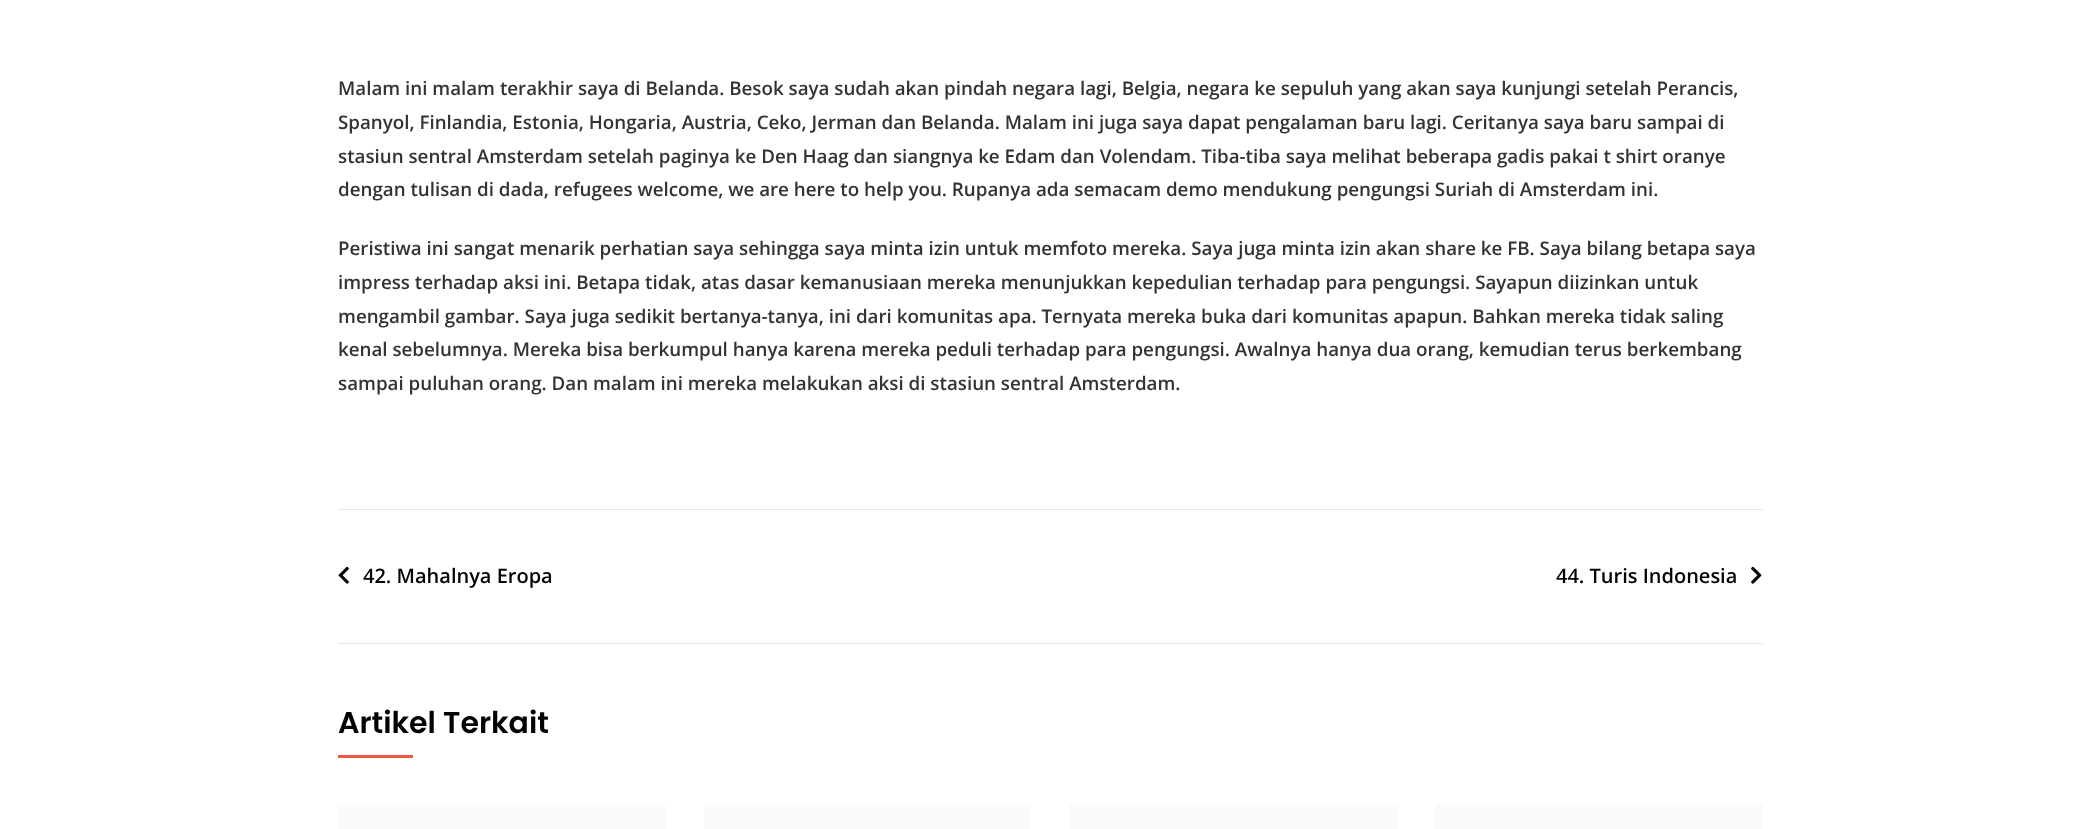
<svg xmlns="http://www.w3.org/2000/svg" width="2099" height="829">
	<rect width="100%" height="100%" fill="#FFFFFF" />
	<g font-family="Open Sans" font-size="18.75" font-weight="600" fill="#333333">
		<text x="338" y="95">Malam ini malam terakhir saya di Belanda. Besok saya sudah akan pindah negara lagi, Belgia, negara ke sepuluh yang akan saya kunjungi setelah Perancis,</text>
		<text x="338" y="129">Spanyol, Finlandia, Estonia, Hongaria, Austria, Ceko, Jerman dan Belanda. Malam ini juga saya dapat pengalaman baru lagi. Ceritanya saya baru sampai di</text>
		<text x="338" y="163">stasiun sentral Amsterdam setelah paginya ke Den Haag dan siangnya ke Edam dan Volendam. Tiba-tiba saya melihat beberapa gadis pakai t shirt oranye</text>
		<text x="338" y="196">dengan tulisan di dada, refugees welcome, we are here to help you. Rupanya ada semacam demo mendukung pengungsi Suriah di Amsterdam ini.</text>
		<text x="338" y="255">Peristiwa ini sangat menarik perhatian saya sehingga saya minta izin untuk memfoto mereka. Saya juga minta izin akan share ke FB. Saya bilang betapa saya</text>
		<text x="338" y="289">impress terhadap aksi ini. Betapa tidak, atas dasar kemanusiaan mereka menunjukkan kepedulian terhadap para pengungsi. Sayapun diizinkan untuk</text>
		<text x="338" y="323">mengambil gambar. Saya juga sedikit bertanya-tanya, ini dari komunitas apa. Ternyata mereka buka dari komunitas apapun. Bahkan mereka tidak saling</text>
		<text x="338" y="356">kenal sebelumnya. Mereka bisa berkumpul hanya karena mereka peduli terhadap para pengungsi. Awalnya hanya dua orang, kemudian terus berkembang</text>
		<text x="338" y="390">sampai puluhan orang. Dan malam ini mereka melakukan aksi di stasiun sentral Amsterdam.</text>
	</g>
	<rect x="338" y="509" width="1425" height="1" fill="#E6E6E6" />
	<rect x="338" y="643" width="1425" height="1" fill="#E6E6E6" />
	<image x="338" y="566" width="11" height="18" href="assets/img1.png" />
	<g font-family="Open Sans" font-size="20" font-weight="600" fill="#030303">
		<text x="363" y="583">42. Mahalnya Eropa</text>
		<text x="1556" y="583">44. Turis Indonesia</text>
	</g>
	<image x="1751" y="566" width="11" height="18" href="assets/img2.png" />
	<text x="338" y="733" font-family="Poppins" font-size="30" font-weight="600" fill="#030303">Artikel Terkait</text>
	<rect x="338" y="755" width="75" height="3" fill="#EB5A3E" />
	<rect x="338" y="805" width="328" height="24" fill="#FAFAFA" />
	<rect x="704" y="805" width="327" height="24" fill="#FAFAFA" />
	<rect x="1069" y="805" width="329" height="24" fill="#FAFAFA" />
	<rect x="1435" y="805" width="328" height="24" fill="#FAFAFA" />
</svg>
